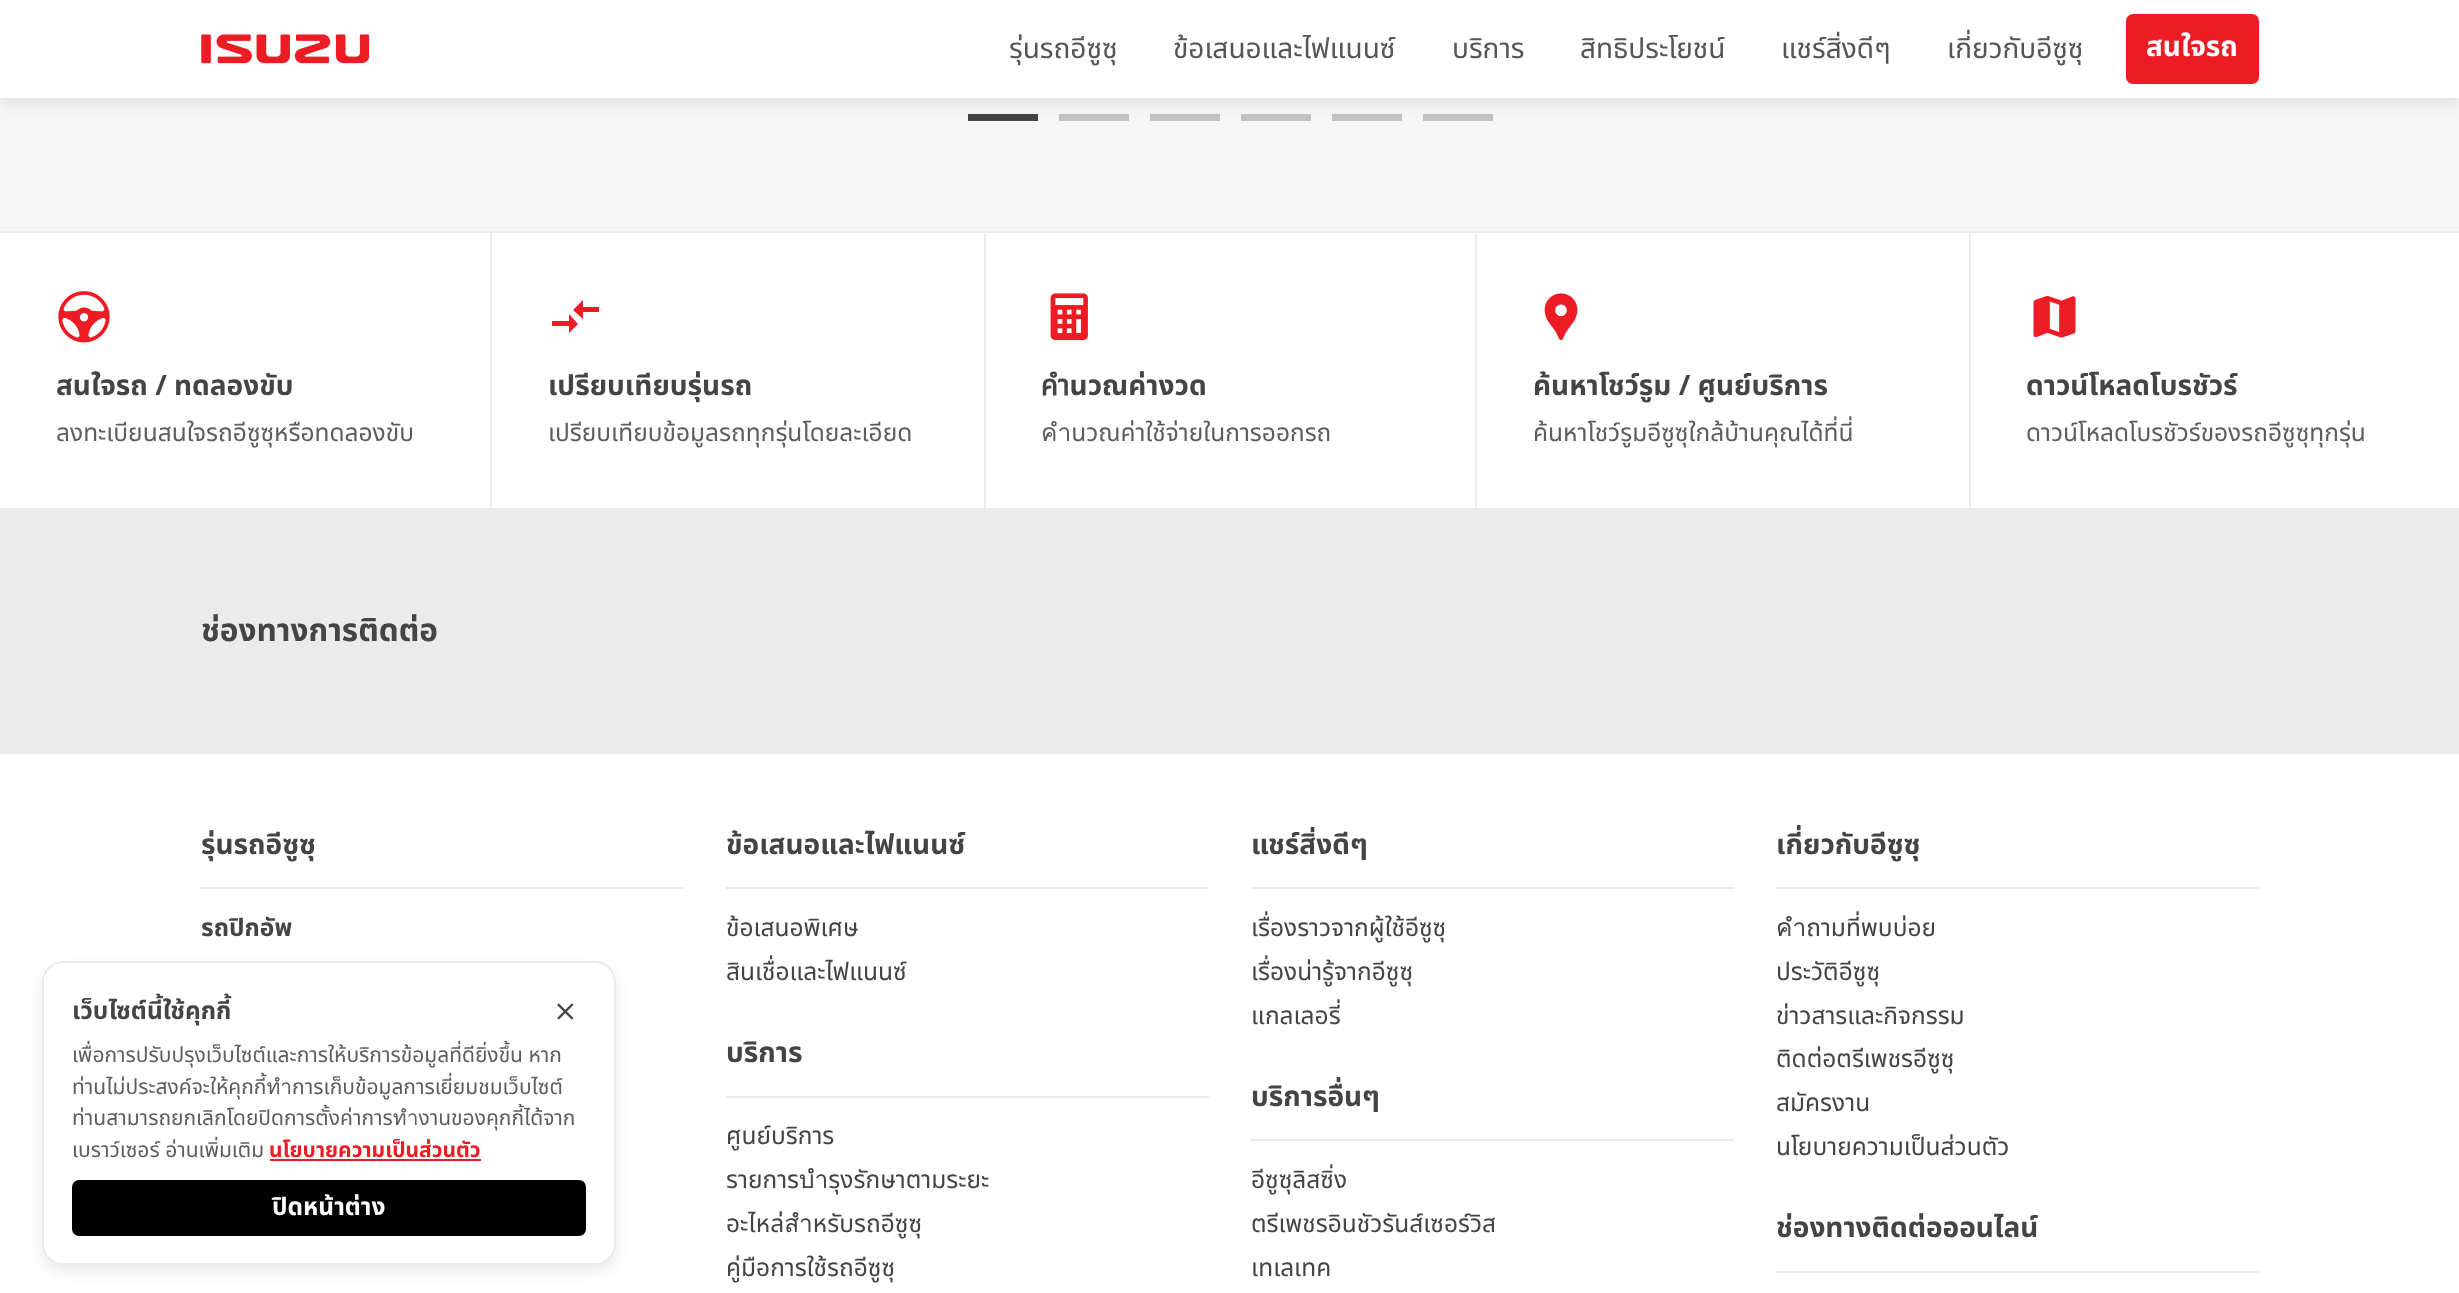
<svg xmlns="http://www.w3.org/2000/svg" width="2459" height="1293">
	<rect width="100%" height="100%" fill="#FFFFFF" />
	<rect x="0" y="98" width="2459" height="133" fill="#F6F6F6" />
	<rect x="968" y="114" width="70" height="7" fill="#444444" />
	<rect x="1059" y="114" width="70" height="7" fill="#C3C3C3" />
	<rect x="1150" y="114" width="70" height="7" fill="#C3C3C3" />
	<rect x="1241" y="114" width="70" height="7" fill="#C3C3C3" />
	<rect x="1332" y="114" width="70" height="7" fill="#C3C3C3" />
	<rect x="1423" y="114" width="70" height="7" fill="#C3C3C3" />
	<rect x="0" y="7" width="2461" height="98" fill="#000000" fill-opacity="0.08" filter="blur(7px)" />
	<rect x="0" y="0" width="2459" height="98" fill="#FFFFFF" />
	<image x="201" y="34" width="168" height="30" href="assets/img1.png" />
	<g font-family="Noto Sans Thai" font-size="28" fill="#555555">
		<text x="1009" y="58">รุ่นรถอีซูซุ</text>
		<text x="1173" y="58">ข้อเสนอและไฟแนนซ์</text>
		<text x="1452" y="58">บริการ</text>
		<text x="1580" y="58">สิทธิประโยชน์</text>
		<text x="1781" y="58">แชร์สิ่งดีๆ</text>
		<text x="1947" y="58">เกี่ยวกับอีซูซุ</text>
	</g>
	<rect x="2126" y="14" width="133" height="70" rx="7" fill="#ED1C24" />
	<text x="2146" y="56" font-family="Noto Sans Thai" font-size="28" font-weight="700" fill="#FFFFFF">สนใจรถ</text>
	<rect x="0" y="231" width="2459" height="2" fill="#EBEBEB" />
	<rect x="0" y="508" width="2459" height="246" fill="#EBEBEB" />
	<rect x="490" y="233" width="2" height="275" fill="#EBEBEB" />
	<image x="58" y="291" width="52" height="52" href="assets/img2.png" />
	<text x="56" y="395" font-family="Noto Sans Thai" font-size="28" font-weight="700" fill="#444444">สนใจรถ / ทดลองขับ</text>
	<text x="56" y="441" font-family="Noto Sans Thai" font-size="24.5" fill="#5D5D5D">ลงทะเบียนสนใจรถอีซูซุหรือทดลองขับ</text>
	<rect x="984" y="233" width="2" height="275" fill="#EBEBEB" />
	<path d="M569 321H552V326H569V333L578 324L569 314ZM583 319V312H599V307H583V300L573 310Z" fill="#ED1C24" />
	<text x="548" y="395" font-family="Noto Sans Thai" font-size="28" font-weight="700" fill="#444444">เปรียบเทียบรุ่นรถ</text>
	<text x="548" y="441" font-family="Noto Sans Thai" font-size="24.5" fill="#5D5D5D">เปรียบเทียบข้อมูลรถทุกรุ่นโดยละเอียด</text>
	<rect x="1475" y="233" width="2" height="275" fill="#EBEBEB" />
	<image x="1050" y="293" width="38" height="48" href="assets/img3.png" />
	<text x="1041" y="395" font-family="Noto Sans Thai" font-size="28" font-weight="700" fill="#444444">คำนวณค่างวด</text>
	<text x="1041" y="441" font-family="Noto Sans Thai" font-size="24.5" fill="#5D5D5D">คำนวณค่าใช้จ่ายในการออกรถ</text>
	<rect x="1969" y="233" width="2" height="275" fill="#EBEBEB" />
	<image x="1544" y="293" width="34" height="47" href="assets/img4.png" />
	<text x="1533" y="395" font-family="Noto Sans Thai" font-size="28" font-weight="700" fill="#444444">ค้นหาโชว์รูม / ศูนย์บริการ</text>
	<text x="1533" y="441" font-family="Noto Sans Thai" font-size="24.5" fill="#5D5D5D">ค้นหาโชว์รูมอีซูซุใกล้บ้านคุณได้ที่นี่</text>
	<image x="2033" y="296" width="43" height="42" href="assets/img5.png" />
	<text x="2026" y="395" font-family="Noto Sans Thai" font-size="28" font-weight="700" fill="#444444">ดาวน์โหลดโบรชัวร์</text>
	<text x="2026" y="441" font-family="Noto Sans Thai" font-size="24.5" fill="#5D5D5D">ดาวน์โหลดโบรชัวร์ของรถอีซูซุทุกรุ่น</text>
	<text x="201" y="641" font-family="Noto Sans Thai" font-size="31.5" font-weight="700" fill="#444444">ช่องทางการติดต่อ</text>
	<rect x="201" y="887" width="483" height="2" fill="#EBEBEB" />
	<text x="201" y="854" font-family="Noto Sans Thai" font-size="28" font-weight="700" fill="#444444">รุ่นรถอีซูซุ</text>
	<text x="201" y="936" font-family="Noto Sans Thai" font-size="24.5" font-weight="700" fill="#444444">รถปิกอัพ</text>
	<rect x="726" y="887" width="483" height="2" fill="#EBEBEB" />
	<text x="726" y="854" font-family="Noto Sans Thai" font-size="28" font-weight="700" fill="#444444">ข้อเสนอและไฟแนนซ์</text>
	<g font-family="Noto Sans Thai" font-size="24.5" fill="#444444">
		<text x="726" y="936">ข้อเสนอพิเศษ</text>
		<text x="726" y="980">สินเชื่อและไฟแนนซ์</text>
	</g>
	<rect x="726" y="1096" width="483" height="2" fill="#EBEBEB" />
	<text x="726" y="1062" font-family="Noto Sans Thai" font-size="28" font-weight="700" fill="#444444">บริการ</text>
	<g font-family="Noto Sans Thai" font-size="24.5" fill="#444444">
		<text x="726" y="1144">ศูนย์บริการ</text>
		<text x="726" y="1188">รายการบำรุงรักษาตามระยะ</text>
		<text x="726" y="1232">อะไหล่สำหรับรถอีซูซุ</text>
		<text x="726" y="1276">คู่มือการใช้รถอีซูซุ</text>
	</g>
	<rect x="1251" y="887" width="483" height="2" fill="#EBEBEB" />
	<text x="1251" y="854" font-family="Noto Sans Thai" font-size="28" font-weight="700" fill="#444444">แชร์สิ่งดีๆ</text>
	<g font-family="Noto Sans Thai" font-size="24.5" fill="#444444">
		<text x="1251" y="936">เรื่องราวจากผู้ใช้อีซูซุ</text>
		<text x="1251" y="980">เรื่องน่ารู้จากอีซูซุ</text>
		<text x="1251" y="1024">แกลเลอรี่</text>
	</g>
	<rect x="1251" y="1139" width="483" height="2" fill="#EBEBEB" />
	<text x="1251" y="1106" font-family="Noto Sans Thai" font-size="28" font-weight="700" fill="#444444">บริการอื่นๆ</text>
	<g font-family="Noto Sans Thai" font-size="24.5" fill="#444444">
		<text x="1251" y="1188">อีซูซุลิสซิ่ง</text>
		<text x="1251" y="1232">ตรีเพชรอินชัวรันส์เซอร์วิส</text>
		<text x="1251" y="1276">เทเลเทค</text>
	</g>
	<rect x="1776" y="887" width="483" height="2" fill="#EBEBEB" />
	<text x="1776" y="854" font-family="Noto Sans Thai" font-size="28" font-weight="700" fill="#444444">เกี่ยวกับอีซูซุ</text>
	<g font-family="Noto Sans Thai" font-size="24.5" fill="#444444">
		<text x="1776" y="936">คำถามที่พบบ่อย</text>
		<text x="1776" y="980">ประวัติอีซูซุ</text>
		<text x="1776" y="1024">ข่าวสารและกิจกรรม</text>
		<text x="1776" y="1067">ติดต่อตรีเพชรอีซูซุ</text>
		<text x="1776" y="1111">สมัครงาน</text>
		<text x="1776" y="1155">นโยบายความเป็นส่วนตัว</text>
	</g>
	<rect x="1776" y="1271" width="483" height="2" fill="#EBEBEB" />
	<text x="1776" y="1237" font-family="Noto Sans Thai" font-size="28" font-weight="700" fill="#444444">ช่องทางติดต่อออนไลน์</text>
	<rect x="42" y="968" width="574" height="304" rx="21" fill="#000000" fill-opacity="0.08" filter="blur(7px)" />
	<rect x="43" y="962" width="572" height="302" rx="20" fill="#FFFFFF" stroke="#EBEBEB" stroke-width="2" />
	<text x="72" y="1019" font-family="Noto Sans Thai" font-size="24.5" font-weight="700" fill="#444444">เว็บไซต์นี้ใช้คุกกี้</text>
	<image x="557" y="1003" width="17" height="17" href="assets/img6.png" />
	<g font-family="Noto Sans Thai" font-size="21" fill="#5D5D5D">
		<text x="72" y="1062">เพื่อการปรับปรุงเว็บไซต์และการให้บริการข้อมูลที่ดียิ่งขึ้น หาก</text>
		<text x="72" y="1094">ท่านไม่ประสงค์จะให้คุกกี้ทำการเก็บข้อมูลการเยี่ยมชมเว็บไซต์</text>
		<text x="72" y="1125">ท่านสามารถยกเลิกโดยปิดการตั้งค่าการทำงานของคุกกี้ได้จาก</text>
		<text x="72" y="1157">เบราว์เซอร์ อ่านเพิ่มเติม</text>
	</g>
	<text x="269" y="1157" font-family="Noto Sans Thai" font-size="21" font-weight="700" fill="#ED1C24">นโยบายความเป็นส่วนตัว</text>
	<rect x="270" y="1159" width="211" height="2" fill="#ED1C24" />
	<rect x="72" y="1180" width="514" height="56" rx="7" fill="#000000" />
	<text x="272" y="1215" font-family="Noto Sans Thai" font-size="24.5" font-weight="700" fill="#FFFFFF">ปิดหน้าต่าง</text>
</svg>
